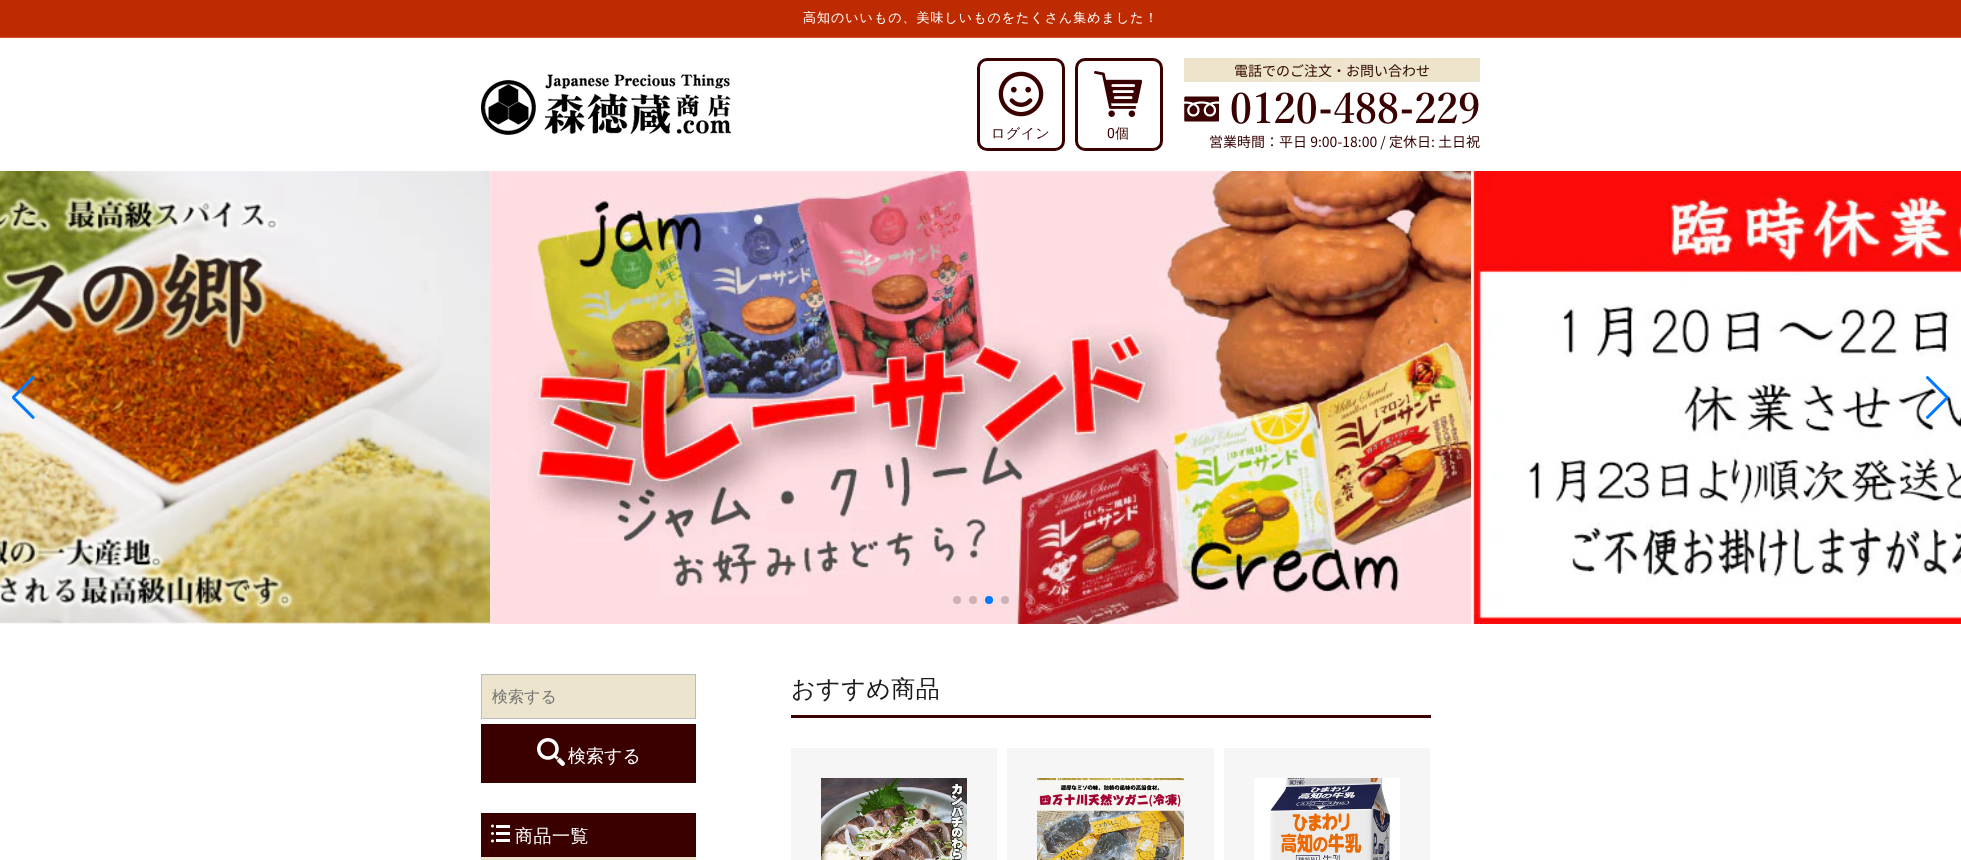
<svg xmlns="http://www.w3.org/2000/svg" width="1961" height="860">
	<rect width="100%" height="100%" fill="#FFFFFF" />
	<rect x="0" y="0" width="1961" height="37" fill="#BF2B00" />
	<rect x="0" y="37" width="1961" height="1" fill="#CC5533" />
	<text x="803" y="22" font-family="WenQuanYi Zen Hei" font-size="13" font-weight="500" letter-spacing="1" fill="#FFFFFF">高知のいいもの、美味しいものをたくさん集めました！</text>
	<image x="1184" y="58" width="296" height="92" href="assets/img1.png" />
	<image x="481" y="74" width="250" height="61" href="assets/img2.png" />
	<rect x="978.5" y="59.5" width="85" height="90" rx="8.5" fill="none" stroke="#3A0000" stroke-width="3" />
	<image x="998" y="71" width="46" height="46" href="assets/img3.png" />
	<text x="991" y="138" font-family="WenQuanYi Zen Hei" font-size="14" font-weight="500" letter-spacing="0.5" fill="#3A0000">ログイン</text>
	<rect x="1076.5" y="59.5" width="85" height="90" rx="8.5" fill="none" stroke="#3A0000" stroke-width="3" />
	<image x="1094" y="71" width="49" height="46" href="assets/img4.png" />
	<text x="1107" y="138" font-family="Roboto" font-size="14" letter-spacing="0.5" fill="#3A0000">0</text>
	<text x="1115" y="138" font-family="WenQuanYi Zen Hei" font-size="14" font-weight="500" letter-spacing="0.5" fill="#3A0000">個</text>
	<image x="0" y="171" width="491" height="453" href="assets/img5.png" />
	<image x="490" y="171" width="982" height="453" href="assets/img6.png" />
	<image x="1471" y="171" width="490" height="453" href="assets/img7.png" />
	<image x="12" y="376" width="23" height="43" href="assets/img8.png" />
	<image x="1925" y="376" width="24" height="43" href="assets/img9.png" />
	<circle cx="957" cy="600" r="4" fill="#CBB1B5" />
	<circle cx="973" cy="600" r="4" fill="#CBB1B5" />
	<circle cx="989" cy="600" r="4" fill="#007AFF" />
	<circle cx="1005" cy="600" r="4" fill="#CBB1B5" />
	<rect x="481.5" y="674.5" width="214" height="44" fill="#EDE4CD" stroke="#BBBBBB" />
	<text x="492" y="702" font-family="WenQuanYi Zen Hei" font-size="16" font-weight="500" fill="#757575">検索する</text>
	<rect x="481" y="724" width="215" height="59" fill="#3A0000" />
	<image x="537" y="738" width="28" height="28" href="assets/img10.png" />
	<text x="568" y="762" font-family="WenQuanYi Zen Hei" font-size="18" font-weight="500" fill="#FFFFFF">検索する</text>
	<rect x="481" y="857" width="215" height="3" fill="#EDE4CD" />
	<rect x="481" y="813" width="215" height="44" fill="#3A0000" />
	<image x="491" y="824" width="19" height="19" href="assets/img11.png" />
	<text x="515" y="842" font-family="WenQuanYi Zen Hei" font-size="18" font-weight="500" letter-spacing="0.5" fill="#FFFFFF">商品一覧</text>
	<rect x="791" y="715" width="640" height="3" fill="#3A0000" />
	<text x="791" y="697" font-family="WenQuanYi Zen Hei" font-size="24" font-weight="500" letter-spacing="0.5" fill="#1A1B18">おすすめ商品</text>
	<rect x="791" y="748" width="206" height="112" fill="#F6F6F6" />
	<image x="821" y="778" width="146" height="82" href="assets/img12.png" />
	<rect x="1007" y="748" width="207" height="112" fill="#F6F6F6" />
	<image x="1037" y="778" width="147" height="82" href="assets/img13.png" />
	<rect x="1224" y="748" width="206" height="112" fill="#F6F6F6" />
	<image x="1254" y="778" width="146" height="82" href="assets/img14.png" />
</svg>
